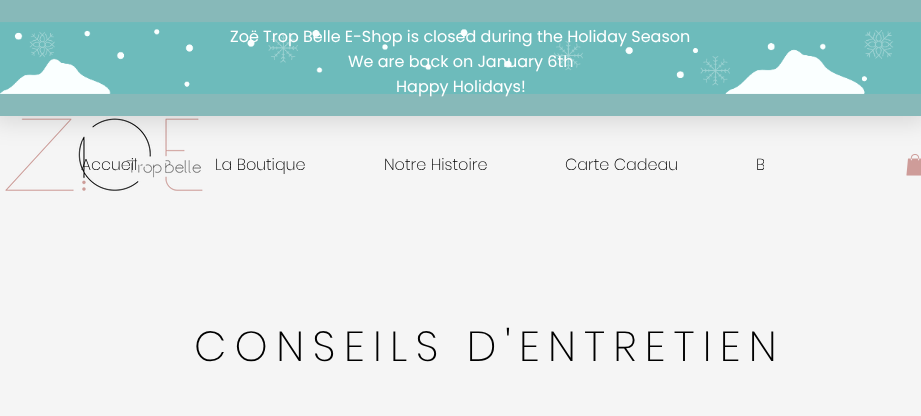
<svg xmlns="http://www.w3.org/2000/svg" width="921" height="416">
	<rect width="100%" height="100%" fill="#F5F5F5" />
	<image x="5" y="116" width="198" height="75" href="assets/img2.png" />
	<image x="906" y="154" width="15" height="22" href="assets/img3.png" />
	<rect x="-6" y="-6" width="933" height="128" fill="#000000" fill-opacity="0.12" filter="blur(12px)" />
	<rect x="0" y="0" width="921" height="116" fill="#87B9B9" />
	<image x="0" y="22" width="921" height="72" href="assets/img1.png" />
	<g font-family="Poppins" font-size="16" fill="#FFFFFF">
		<text x="230" y="42">Zoë Trop Belle E-Shop is closed during the Holiday Season</text>
		<text x="348" y="67">We are back on January 6th</text>
		<text x="396" y="92">Happy Holidays!</text>
	</g>
	<text x="756" y="170" font-family="Poppins" font-size="16" font-weight="200" fill="#000000">B</text>
	<rect x="764" y="160" width="1" height="9" fill="#F5F5F5" />
	<g font-family="Poppins" font-size="16" font-weight="200" fill="#000000">
		<text x="81" y="170">Accueil</text>
		<text x="215" y="170">La Boutique</text>
		<text x="384" y="170">Notre Histoire</text>
		<text x="565" y="170">Carte Cadeau</text>
	</g>
	<text x="194" y="361" font-family="Poppins" font-size="42" font-weight="200" letter-spacing="8.4" fill="#000000">CONSEILS D'ENTRETIEN</text>
</svg>
